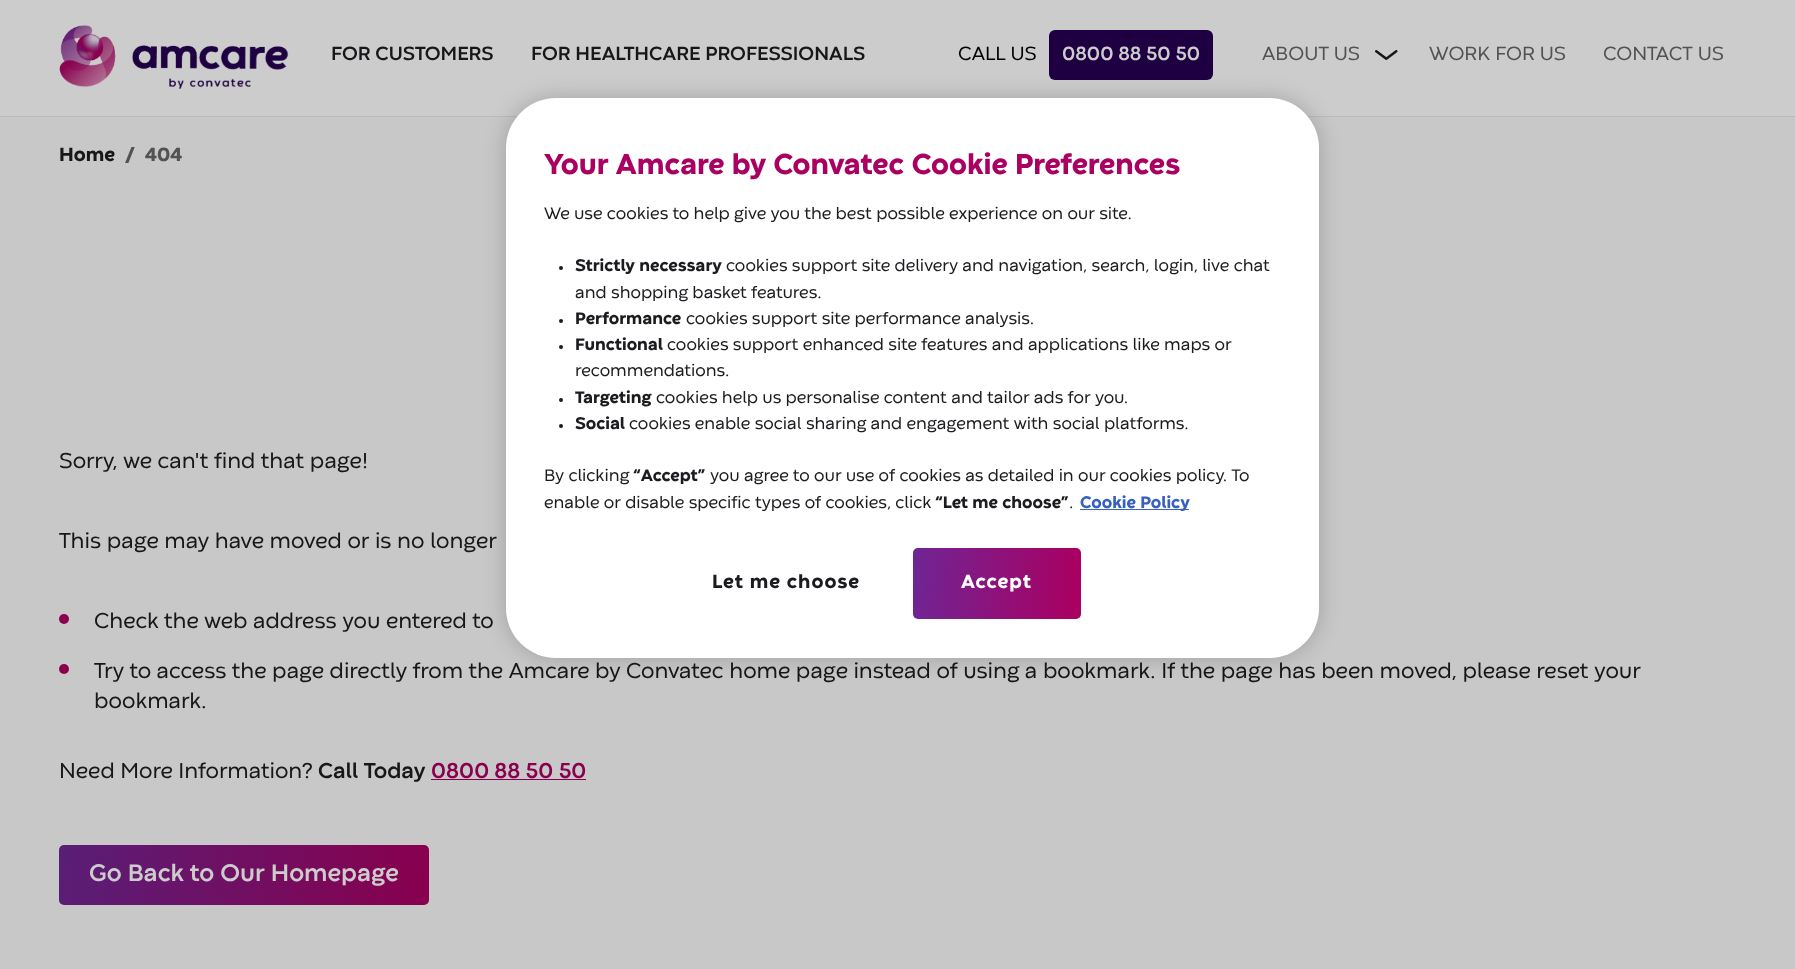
<svg xmlns="http://www.w3.org/2000/svg" width="1795" height="969">
	<defs>
		<linearGradient id="g1" gradientUnits="userSpaceOnUse" x1="59" y1="838" x2="798" y2="912"><stop offset="0" stop-color="#591E77" /><stop offset="0.5" stop-color="#88004E" /><stop offset="0.6" stop-color="#65143F" /><stop offset="0.81" stop-color="#411E5C" /><stop offset="1" stop-color="#591E77" /></linearGradient>
		<clipPath id="clip1"><rect x="913" y="548" width="168" height="71" rx="5" /></clipPath>
		<linearGradient id="g2" gradientUnits="userSpaceOnUse" x1="586" y1="500" x2="917" y2="534"><stop offset="0" stop-color="#6F2595" /><stop offset="0.5" stop-color="#AA0061" /><stop offset="0.6" stop-color="#7E194F" /><stop offset="0.81" stop-color="#512573" /><stop offset="1" stop-color="#6F2595" /></linearGradient>
		<linearGradient id="g3" gradientUnits="userSpaceOnUse" x1="913" y1="500" x2="1244" y2="534"><stop offset="0" stop-color="#6F2595" /><stop offset="0.5" stop-color="#AA0061" /><stop offset="0.6" stop-color="#7E194F" /><stop offset="0.81" stop-color="#512573" /><stop offset="1" stop-color="#6F2595" /></linearGradient>
		<linearGradient id="g4" gradientUnits="userSpaceOnUse" x1="586" y1="566" x2="917" y2="600"><stop offset="0" stop-color="#6F2595" /><stop offset="0.5" stop-color="#AA0061" /><stop offset="0.6" stop-color="#7E194F" /><stop offset="0.81" stop-color="#512573" /><stop offset="1" stop-color="#6F2595" /></linearGradient>
		<linearGradient id="g5" gradientUnits="userSpaceOnUse" x1="913" y1="566" x2="1244" y2="600"><stop offset="0" stop-color="#6F2595" /><stop offset="0.5" stop-color="#AA0061" /><stop offset="0.6" stop-color="#7E194F" /><stop offset="0.81" stop-color="#512573" /><stop offset="1" stop-color="#6F2595" /></linearGradient>
		<linearGradient id="g6" gradientUnits="userSpaceOnUse" x1="586" y1="633" x2="917" y2="666"><stop offset="0" stop-color="#6F2595" /><stop offset="0.5" stop-color="#AA0061" /><stop offset="0.6" stop-color="#7E194F" /><stop offset="0.81" stop-color="#512573" /><stop offset="1" stop-color="#6F2595" /></linearGradient>
		<linearGradient id="g7" gradientUnits="userSpaceOnUse" x1="913" y1="633" x2="1244" y2="666"><stop offset="0" stop-color="#6F2595" /><stop offset="0.5" stop-color="#AA0061" /><stop offset="0.6" stop-color="#7E194F" /><stop offset="0.81" stop-color="#512573" /><stop offset="1" stop-color="#6F2595" /></linearGradient>
	</defs>
	<rect width="100%" height="100%" fill="#C8C8C8" />
	<rect x="0" y="0" width="1795" height="116" fill="#CCCCCC" />
	<image x="59" y="25" width="230" height="64" href="assets/img1.png" />
	<g font-family="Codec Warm" font-size="20" font-weight="700" fill="#171619">
		<text x="331" y="60">FOR CUSTOMERS</text>
		<text x="531" y="60">FOR HEALTHCARE PROFESSIONALS</text>
	</g>
	<text x="958" y="60" font-family="Codec Warm" font-size="20" fill="#000000">CALL US</text>
	<rect x="1049" y="30" width="164" height="50" rx="6" fill="#1E0042" />
	<text x="1062" y="60" font-family="Codec Warm" font-size="20" font-weight="700" fill="#CCCCCC">0800 88 50 50</text>
	<text x="1262" y="60" font-family="Codec Warm" font-size="20" fill="#525252">ABOUT US</text>
	<image x="1375" y="50" width="23" height="10" href="assets/img2.png" />
	<g font-family="Codec Warm" font-size="20" fill="#525252">
		<text x="1429" y="60">WORK FOR US</text>
		<text x="1603" y="60">CONTACT US</text>
	</g>
	<rect x="0" y="116" width="1795" height="1" fill="#BCBCBC" />
	<text x="59" y="161" font-family="Codec Warm" font-size="20" font-weight="800" fill="#171619">Home</text>
	<g font-family="Codec Warm" font-size="20" font-weight="800" fill="#525252">
		<text x="125" y="161">/</text>
		<text x="145" y="161">404</text>
	</g>
	<g font-family="Codec Warm" font-size="22.5" fill="#171619">
		<text x="59" y="468">Sorry, we can't find that page!</text>
		<text x="59" y="548">This page may have moved or is no longer</text>
	</g>
	<circle cx="64" cy="619" r="5" fill="#88004E" />
	<text x="94" y="628" font-family="Codec Warm" font-size="22.5" fill="#171619">Check the web address you entered to</text>
	<circle cx="64" cy="669" r="5" fill="#88004E" />
	<g font-family="Codec Warm" font-size="22.5" fill="#171619">
		<text x="94" y="678">Try to access the page directly from the Amcare by Convatec home page instead of using a bookmark. If the page has been moved, please reset your</text>
		<text x="94" y="708">bookmark.</text>
		<text x="59" y="778">Need More Information?</text>
	</g>
	<text x="318" y="778" font-family="Codec Warm" font-size="22.5" font-weight="700" fill="#171619">Call Today</text>
	<text x="431" y="778" font-family="Codec Warm" font-size="22.5" font-weight="700" fill="#88004E">0800 88 50 50</text>
	<rect x="431" y="779" width="155" height="1" fill="#88004E" />
	<rect x="59" y="845" width="370" height="60" rx="5" fill="url(#g1)" />
	<text x="89" y="881" font-family="Codec Warm" font-size="25" font-weight="700" fill="#CCCCCC">Go Back to Our Homepage</text>
	<rect x="506" y="98" width="813" height="560" rx="50" fill="#000000" fill-opacity="0.2" filter="blur(11px)" />
	<rect x="506" y="98" width="813" height="560" rx="50" fill="#FFFFFF" />
	<text x="544" y="174" font-family="Codec Warm" font-size="30" font-weight="800" fill="#AA0061">Your Amcare by Convatec Cookie Preferences</text>
	<text x="544" y="219" font-family="Codec Warm" font-size="17.5" fill="#1D1B1F">We use cookies to help give you the best possible experience on our site.</text>
	<circle cx="561" cy="268" r="2" fill="#1D1B1F" />
	<text x="575" y="271" font-family="Codec Warm" font-size="17.5" font-weight="800" fill="#1D1B1F">Strictly necessary</text>
	<g font-family="Codec Warm" font-size="17.5" fill="#1D1B1F">
		<text x="726" y="271">cookies support site delivery and navigation, search, login, live chat</text>
		<text x="575" y="298">and shopping basket features.</text>
	</g>
	<circle cx="561" cy="321" r="2" fill="#1D1B1F" />
	<text x="575" y="324" font-family="Codec Warm" font-size="17.5" font-weight="800" fill="#1D1B1F">Performance</text>
	<text x="686" y="324" font-family="Codec Warm" font-size="17.5" fill="#1D1B1F">cookies support site performance analysis.</text>
	<circle cx="561" cy="347" r="2" fill="#1D1B1F" />
	<text x="575" y="350" font-family="Codec Warm" font-size="17.5" font-weight="800" fill="#1D1B1F">Functional</text>
	<g font-family="Codec Warm" font-size="17.5" fill="#1D1B1F">
		<text x="667" y="350">cookies support enhanced site features and applications like maps or</text>
		<text x="575" y="376">recommendations.</text>
	</g>
	<circle cx="561" cy="400" r="2" fill="#1D1B1F" />
	<text x="575" y="403" font-family="Codec Warm" font-size="17.5" font-weight="800" fill="#1D1B1F">Targeting</text>
	<text x="656" y="403" font-family="Codec Warm" font-size="17.5" fill="#1D1B1F">cookies help us personalise content and tailor ads for you.</text>
	<circle cx="561" cy="426" r="2" fill="#1D1B1F" />
	<text x="575" y="429" font-family="Codec Warm" font-size="17.5" font-weight="800" fill="#1D1B1F">Social</text>
	<g font-family="Codec Warm" font-size="17.5" fill="#1D1B1F">
		<text x="629" y="429">cookies enable social sharing and engagement with social platforms.</text>
		<text x="544" y="481">By clicking</text>
	</g>
	<text x="633" y="481" font-family="Codec Warm" font-size="17.5" font-weight="800" fill="#1D1B1F">“Accept”</text>
	<g font-family="Codec Warm" font-size="17.5" fill="#1D1B1F">
		<text x="710" y="481">you agree to our use of cookies as detailed in our cookies policy. To</text>
		<text x="544" y="508">enable or disable specific types of cookies, click</text>
	</g>
	<text x="935" y="508" font-family="Codec Warm" font-size="17.5" font-weight="800" fill="#1D1B1F">“Let me choose”</text>
	<text x="1069" y="508" font-family="Codec Warm" font-size="17.5" fill="#1D1B1F">.</text>
	<rect x="1080" y="509" width="109" height="1" fill="#3860BE" />
	<text x="1080" y="508" font-family="Codec Warm" font-size="17.5" font-weight="800" fill="#3860BE">Cookie Policy</text>
	<text x="712" y="588" font-family="Codec Warm" font-size="20" font-weight="800" letter-spacing="1" fill="#1D1B1F">Let me choose</text>
	<g clip-path="url(#clip1)">
		<rect x="913" y="549" width="2" height="1" fill="url(#g2)" />
		<rect x="915" y="548" width="166" height="2" fill="url(#g3)" />
		<rect x="913" y="550" width="2" height="66" fill="url(#g4)" />
		<rect x="915" y="550" width="166" height="66" fill="url(#g5)" />
		<rect x="913" y="616" width="2" height="3" fill="url(#g6)" />
		<rect x="915" y="616" width="166" height="3" fill="url(#g7)" />
	</g>
	<text x="961" y="588" font-family="Codec Warm" font-size="20" font-weight="800" letter-spacing="1" fill="#FFFFFF">Accept</text>
</svg>
